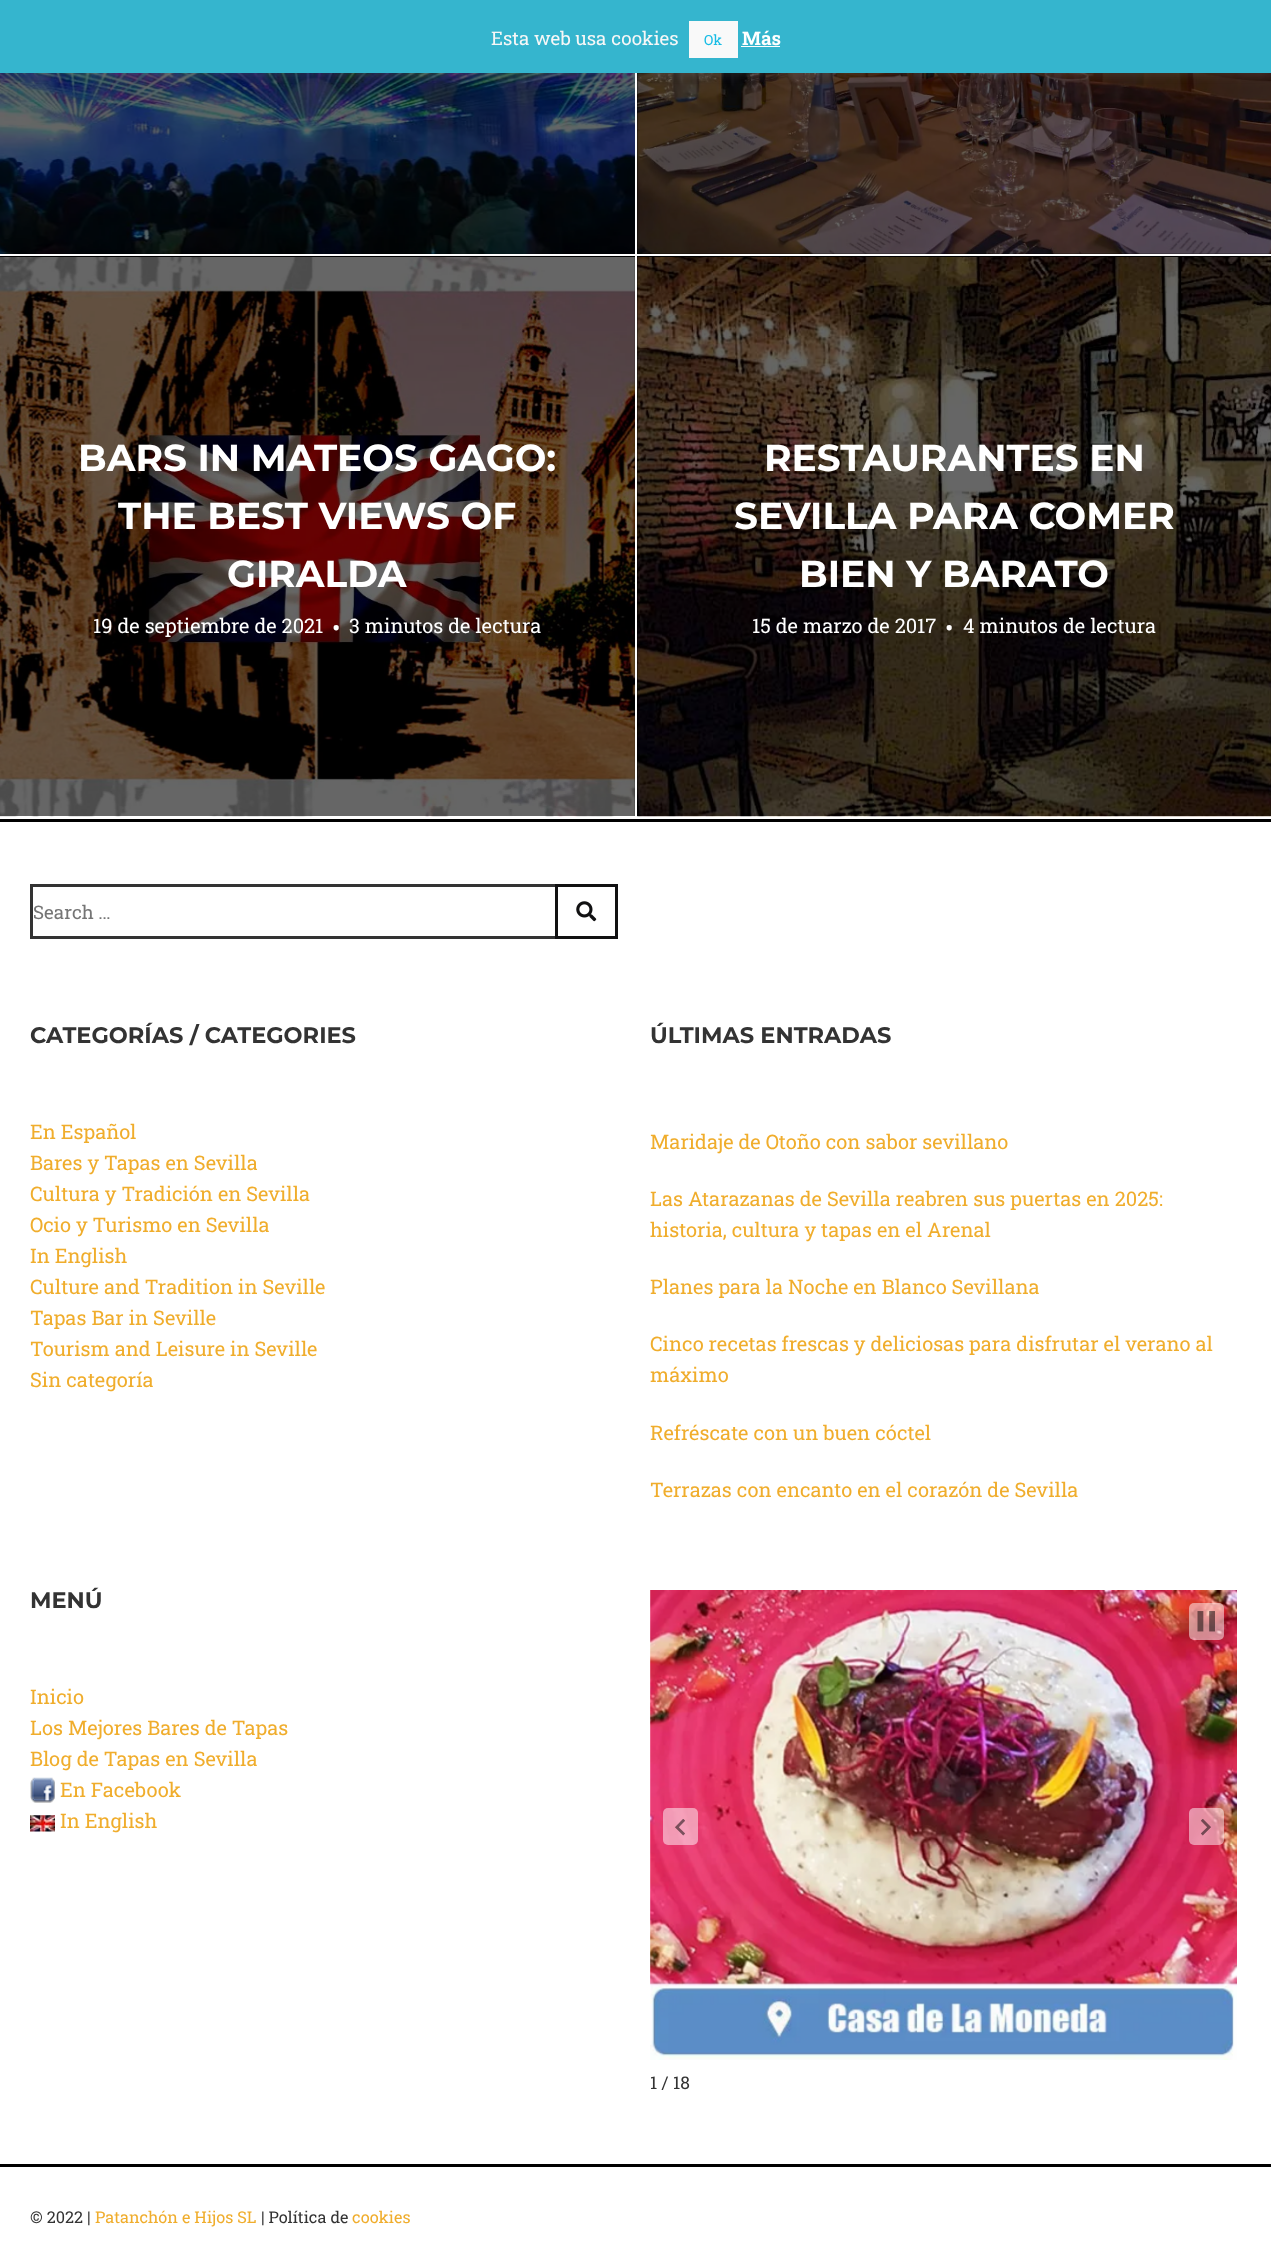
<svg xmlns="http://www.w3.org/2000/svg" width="1271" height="2266">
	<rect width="100%" height="100%" fill="#FFFFFF" />
	<rect x="0" y="73" width="635" height="181" fill="#000000" />
	<image x="0" y="73" width="635" height="181" href="assets/img1.png" />
	<rect x="637" y="73" width="634" height="181" fill="#000000" />
	<image x="637" y="73" width="634" height="181" href="assets/img2.png" />
	<rect x="0" y="-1" width="1271" height="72" fill="#ACABAB" fill-opacity="0.3" filter="blur(6px)" />
	<rect x="0" y="0" width="1271" height="73" fill="#35B5CE" />
	<text x="491" y="45" font-family="Roboto Slab" font-size="18.75" fill="#F7F7F7">Esta web usa cookies</text>
	<rect x="689" y="21" width="49" height="37" fill="#F9F9F9" />
	<text x="704" y="45" font-family="Roboto Slab" font-size="14" fill="#16BCE5">Ok</text>
	<text x="742" y="45" font-family="Roboto Slab" font-size="18.75" font-weight="700" fill="#FFFFFF">Más</text>
	<rect x="741" y="46" width="39" height="1" fill="#FFFFFF" />
	<rect x="0" y="256" width="635" height="560" fill="#000000" />
	<image x="0" y="257" width="635" height="560" href="assets/img3.png" />
	<g font-family="Montserrat" font-size="37.5" font-weight="700" fill="#FFFFFF">
		<text x="78" y="471">BARS IN MATEOS GAGO:</text>
		<text x="118" y="529">THE BEST VIEWS OF</text>
		<text x="227" y="587">GIRALDA</text>
	</g>
	<text x="93" y="633" font-family="Roboto Slab" font-size="20" fill="#FFFFFF">19 de septiembre de 2021</text>
	<text x="332" y="637" font-family="Roboto Slab" font-size="25" fill="#FFFFFF">•</text>
	<text x="349" y="633" font-family="Roboto Slab" font-size="20" fill="#FFFFFF">3 minutos de lectura</text>
	<rect x="637" y="256" width="634" height="560" fill="#000000" />
	<image x="637" y="257" width="634" height="560" href="assets/img4.png" />
	<g font-family="Montserrat" font-size="37.5" font-weight="700" fill="#FFFFFF">
		<text x="764" y="471">RESTAURANTES EN</text>
		<text x="734" y="529">SEVILLA PARA COMER</text>
		<text x="799" y="587">BIEN Y BARATO</text>
	</g>
	<text x="752" y="633" font-family="Roboto Slab" font-size="20" fill="#FFFFFF">15 de marzo de 2017</text>
	<text x="945" y="637" font-family="Roboto Slab" font-size="25" fill="#FFFFFF">•</text>
	<text x="963" y="633" font-family="Roboto Slab" font-size="20" fill="#FFFFFF">4 minutos de lectura</text>
	<rect x="0" y="819" width="1271" height="3" fill="#000000" />
	<rect x="31.5" y="885.5" width="585" height="52" fill="none" stroke="#333333" stroke-width="3" />
	<text x="33" y="919" font-family="Roboto Slab" font-size="18.75" fill="#757575">Search …</text>
	<rect x="556.5" y="885.5" width="60" height="52" fill="none" stroke="#111112" stroke-width="3" />
	<image x="576" y="901" width="21" height="21" href="assets/img5.png" />
	<text x="30" y="1043" font-family="Montserrat" font-size="22.5" font-weight="700" fill="#333333">CATEGORÍAS / CATEGORIES</text>
	<g font-family="Roboto Slab" font-size="20" fill="#F0AD2C">
		<text x="30" y="1139">En Español</text>
		<text x="30" y="1170">Bares y Tapas en Sevilla</text>
		<text x="30" y="1201">Cultura y Tradición en Sevilla</text>
		<text x="30" y="1232">Ocio y Turismo en Sevilla</text>
		<text x="30" y="1263">In English</text>
		<text x="30" y="1294">Culture and Tradition in Seville</text>
		<text x="30" y="1325">Tapas Bar in Seville</text>
		<text x="30" y="1356">Tourism and Leisure in Seville</text>
		<text x="30" y="1387">Sin categoría</text>
	</g>
	<text x="650" y="1043" font-family="Montserrat" font-size="22.5" font-weight="700" fill="#333333">ÚLTIMAS ENTRADAS</text>
	<g font-family="Roboto Slab" font-size="20" fill="#F0AD2C">
		<text x="650" y="1149">Maridaje de Otoño con sabor sevillano</text>
		<text x="650" y="1206">Las Atarazanas de Sevilla reabren sus puertas en 2025:</text>
		<text x="650" y="1237">historia, cultura y tapas en el Arenal</text>
		<text x="650" y="1294">Planes para la Noche en Blanco Sevillana</text>
		<text x="650" y="1351">Cinco recetas frescas y deliciosas para disfrutar el verano al</text>
		<text x="650" y="1382">máximo</text>
		<text x="650" y="1440">Refréscate con un buen cóctel</text>
		<text x="650" y="1497">Terrazas con encanto en el corazón de Sevilla</text>
	</g>
	<text x="30" y="1608" font-family="Montserrat" font-size="22.5" font-weight="700" fill="#333333">MENÚ</text>
	<g font-family="Roboto Slab" font-size="20" fill="#F0AD2C">
		<text x="30" y="1704">Inicio</text>
		<text x="30" y="1735">Los Mejores Bares de Tapas</text>
		<text x="30" y="1766">Blog de Tapas en Sevilla</text>
	</g>
	<image x="30" y="1777" width="25" height="26" href="assets/img6.png" />
	<text x="60" y="1797" font-family="Roboto Slab" font-size="20" fill="#F0AD2C">En Facebook</text>
	<image x="30" y="1815" width="25" height="17" href="assets/img7.png" />
	<text x="60" y="1828" font-family="Roboto Slab" font-size="20" fill="#F0AD2C">In English</text>
	<image x="650" y="1590" width="587" height="470" href="assets/img8.png" />
	<rect x="1189" y="1603" width="35" height="37" rx="5" fill="#FFFFFF" fill-opacity="0.5" />
	<image x="1197" y="1611" width="18" height="21" href="assets/img9.png" />
	<rect x="663" y="1808" width="35" height="37" rx="5" fill="#FFFFFF" fill-opacity="0.5" />
	<image x="675" y="1819" width="10" height="17" href="assets/img10.png" />
	<rect x="1189" y="1808" width="35" height="37" rx="5" fill="#FFFFFF" fill-opacity="0.5" />
	<image x="1201" y="1819" width="10" height="17" href="assets/img11.png" />
	<text x="650" y="2089" font-family="Roboto Slab" font-size="17.5" fill="#333333">1 / 18</text>
	<rect x="0" y="2164" width="1271" height="3" fill="#000000" />
	<text x="30" y="2223" font-family="Roboto Slab" font-size="16.25" fill="#333333">© 2022 |</text>
	<text x="95" y="2223" font-family="Roboto Slab" font-size="16.25" fill="#F0AD2C">Patanchón e Hijos SL</text>
	<text x="261" y="2223" font-family="Roboto Slab" font-size="16.25" fill="#333333">| Política de</text>
	<text x="352" y="2223" font-family="Roboto Slab" font-size="16.25" fill="#F0AD2C">cookies</text>
</svg>
